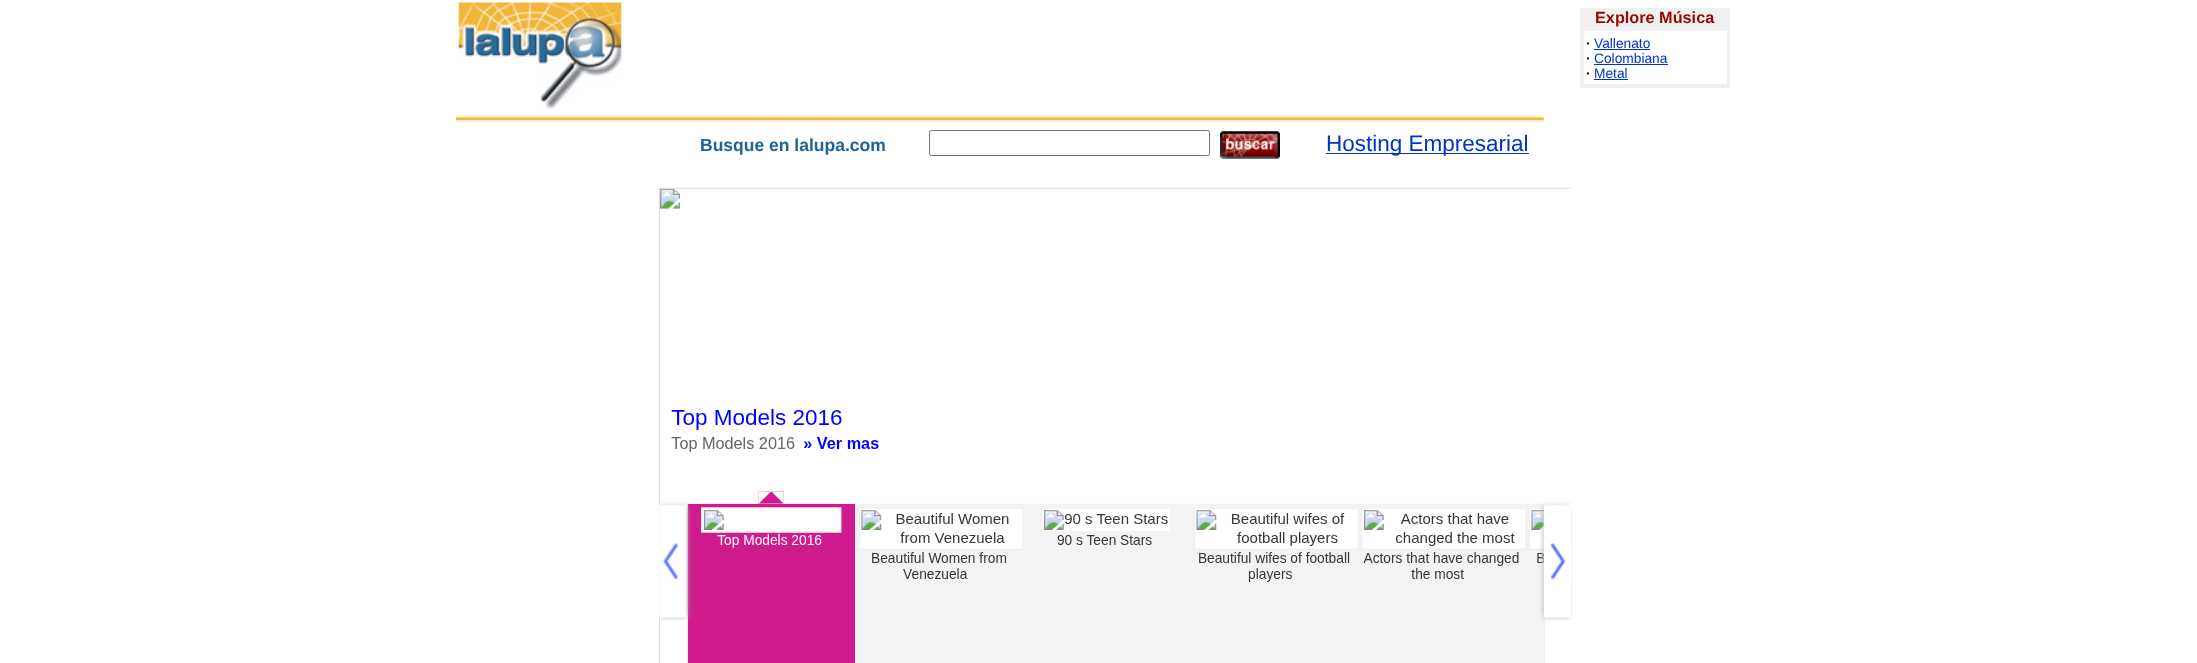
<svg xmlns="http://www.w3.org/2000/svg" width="2197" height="663">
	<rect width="100%" height="100%" fill="#FFFFFF" />
	<image x="458" y="2" width="164" height="108" href="assets/img1.png" />
	<rect x="1580" y="8" width="150" height="20" fill="#F0F0F0" />
	<text x="1595" y="23" font-family="Liberation Sans" font-size="16.25" font-weight="700" fill="#900903">Explore Música</text>
	<rect x="1581.5" y="29.5" width="147" height="57" fill="none" stroke="#F0F0F0" stroke-width="3" />
	<rect x="1583.5" y="30.5" width="144" height="54" fill="none" stroke="#F0F0F0" />
	<text x="1586" y="48" font-family="Liberation Sans" font-size="13.75" font-weight="700" fill="#000000">·</text>
	<text x="1594" y="48" font-family="Liberation Sans" font-size="13.75" fill="#0033CC">Vallenato</text>
	<rect x="1594" y="49" width="56" height="1" fill="#0033CC" />
	<text x="1586" y="63" font-family="Liberation Sans" font-size="13.75" font-weight="700" fill="#000000">·</text>
	<text x="1594" y="63" font-family="Liberation Sans" font-size="13.75" fill="#0033CC">Colombiana</text>
	<rect x="1594" y="64" width="74" height="1" fill="#0033CC" />
	<text x="1586" y="78" font-family="Liberation Sans" font-size="13.75" font-weight="700" fill="#000000">·</text>
	<text x="1594" y="78" font-family="Liberation Sans" font-size="13.75" fill="#0033CC">Metal</text>
	<rect x="1594" y="79" width="34" height="1" fill="#0033CC" />
	<image x="456" y="115" width="1088" height="8" href="assets/img2.png" />
	<image x="456" y="115" width="9" height="7" href="assets/img3.png" />
	<text x="700" y="151" font-family="Liberation Sans" font-size="17.5" font-weight="700" fill="#206398">Busque en lalupa.com</text>
	<rect x="929.5" y="130.5" width="280" height="25" rx="2" fill="none" stroke="#767676" />
	<image x="1220" y="131" width="60" height="28" href="assets/img4.png" />
	<rect x="1326" y="153" width="203" height="1" fill="#0033CC" />
	<text x="1326" y="151" font-family="Liberation Sans" font-size="22.5" fill="#0033CC">Hosting Empresarial</text>
	<image x="659" y="187" width="913" height="476" href="assets/img5.png" />
</svg>
